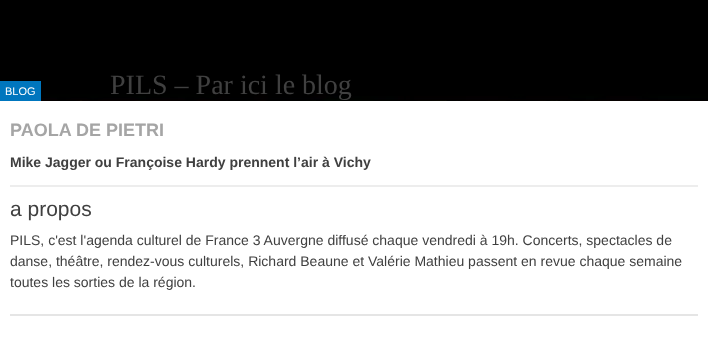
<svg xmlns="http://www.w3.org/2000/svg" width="708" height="353">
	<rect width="100%" height="100%" fill="#FFFFFF" />
	<image x="0" y="0" width="708" height="101" href="assets/img1.png" />
	<rect x="0" y="81" width="41" height="20" fill="#0076BE" />
	<text x="5" y="95" font-family="Liberation Sans" font-size="11" fill="#FFFFFF">BLOG</text>
	<text x="110" y="94" font-family="Liberation Serif" font-size="28" fill="#404040">PILS – Par ici le blog</text>
	<rect x="10" y="185" width="688" height="2" fill="#EDEDED" />
	<text x="10" y="136" font-family="Liberation Sans" font-size="18" font-weight="700" fill="#A5A5A5">PAOLA DE PIETRI</text>
	<text x="10" y="167" font-family="Liberation Sans" font-size="14" font-weight="700" fill="#404040">Mike Jagger ou Françoise Hardy prennent l’air à Vichy</text>
	<rect x="10" y="314" width="688" height="2" fill="#E5E5E5" />
	<text x="10" y="216" font-family="Liberation Sans" font-size="21" fill="#404040">a propos</text>
	<g font-family="Liberation Sans" font-size="14" fill="#404040">
		<text x="10" y="245">PILS, c'est l'agenda culturel de France 3 Auvergne diffusé chaque vendredi à 19h. Concerts, spectacles de</text>
		<text x="10" y="266">danse, théâtre, rendez-vous culturels, Richard Beaune et Valérie Mathieu passent en revue chaque semaine</text>
		<text x="10" y="287">toutes les sorties de la région.</text>
	</g>
</svg>
